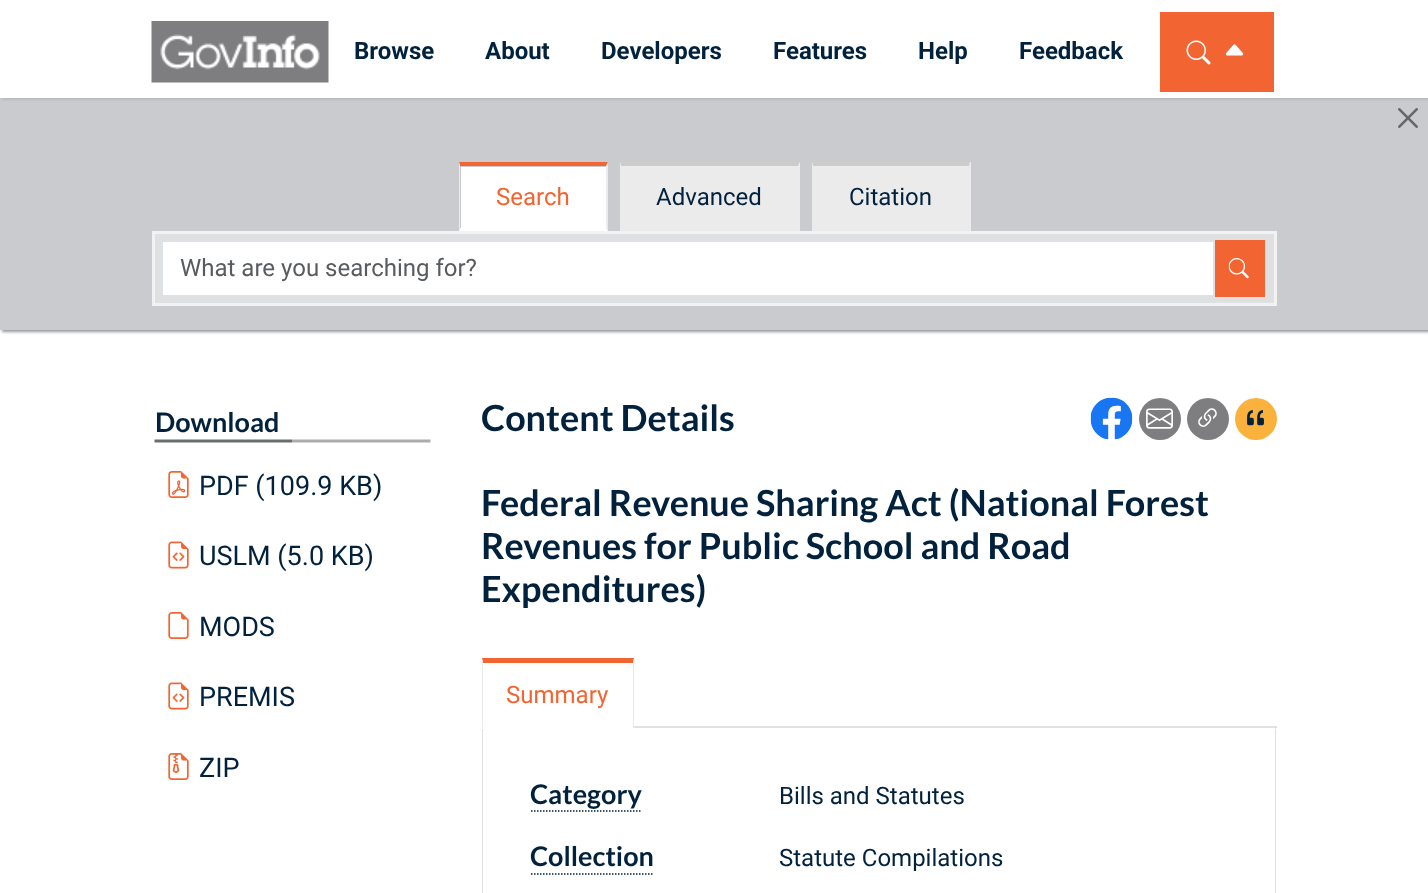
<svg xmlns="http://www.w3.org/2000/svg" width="1428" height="893">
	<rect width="100%" height="100%" fill="#FFFFFF" />
	<rect x="2" y="99" width="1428" height="233" fill="#94979E" filter="blur(1.5px)" />
	<rect x="0" y="98" width="1428" height="232" fill="#C9CBCF" />
	<rect x="2" y="2" width="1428" height="97" fill="#AFB1B6" filter="blur(1.5px)" />
	<rect x="0" y="0" width="1428" height="98" fill="#FFFFFF" />
	<image x="151" y="21" width="178" height="62" href="assets/img1.png" />
	<g font-family="Roboto" font-size="24" font-weight="700" fill="#01213C">
		<text x="354" y="59">Browse</text>
		<text x="485" y="59">About</text>
		<text x="601" y="59">Developers</text>
		<text x="773" y="59">Features</text>
		<text x="918" y="59">Help</text>
		<text x="1019" y="59">Feedback</text>
	</g>
	<rect x="1160" y="12" width="114" height="80" fill="#F26431" />
	<image x="1186" y="40" width="25" height="25" href="assets/img2.png" />
	<image x="1225" y="44" width="19" height="12" href="assets/img3.png" />
	<image x="1398" y="108" width="20" height="20" href="assets/img4.png" />
	<rect x="461" y="167" width="145" height="61" fill="#FFFFFF" />
	<path d="M459 162H608L606 166H460Z" fill="#F26431" />
	<path d="M608 162V231L606 228V166Z" fill="#EBEBEB" />
	<path d="M608 231H459L460 228H606Z" fill="#FFFFFF" />
	<path d="M459 231V162L460 166V228Z" fill="#EBEBEB" />
	<text x="496" y="205" font-family="Roboto" font-size="24" fill="#F26431">Search</text>
	<rect x="620" y="162" width="180" height="69" fill="#EBEBEB" />
	<path d="M620 162H800L798 166H621Z" fill="#CCCCCC" />
	<path d="M800 162V231L798 228V166Z" fill="#EBEBEB" />
	<path d="M620 231V162L621 166V228Z" fill="#EBEBEB" />
	<text x="656" y="205" font-family="Roboto" font-size="24" fill="#01213C">Advanced</text>
	<rect x="812" y="162" width="159" height="69" fill="#EBEBEB" />
	<path d="M812 162H970L969 166H813Z" fill="#CCCCCC" />
	<path d="M970 162V231L969 228V166Z" fill="#EBEBEB" />
	<path d="M812 231V162L813 166V228Z" fill="#EBEBEB" />
	<text x="849" y="205" font-family="Roboto" font-size="24" fill="#01213C">Citation</text>
	<rect x="153.5" y="232.5" width="1122" height="72" fill="#DFE0E2" stroke="#F2F2F2" stroke-width="3" />
	<rect x="162" y="241" width="1052" height="55" fill="#FFFFFF" stroke="#DEE2E6" stroke-width="2" />
	<text x="180" y="276" font-family="Roboto" font-size="24" fill="#595C5F">What are you searching for?</text>
	<rect x="1215" y="240" width="50" height="57" fill="#F26431" />
	<image x="1228" y="258" width="21" height="21" href="assets/img5.png" />
	<image x="154" y="439" width="277" height="4" href="assets/img6.png" />
	<text x="155" y="432" font-family="Lato" font-size="27" font-weight="700" fill="#01213C">Download</text>
	<image x="168" y="471" width="21" height="27" href="assets/img7.png" />
	<text x="199" y="495" font-family="Roboto" font-size="27" fill="#01213C">PDF (109.9 KB)</text>
	<image x="168" y="541" width="21" height="28" href="assets/img8.png" />
	<text x="199" y="565" font-family="Roboto" font-size="27" fill="#01213C">USLM (5.0 KB)</text>
	<image x="168" y="612" width="21" height="27" href="assets/img9.png" />
	<text x="199" y="636" font-family="Roboto" font-size="27" fill="#01213C">MODS</text>
	<image x="168" y="682" width="21" height="28" href="assets/img8.png" />
	<text x="199" y="706" font-family="Roboto" font-size="27" fill="#01213C">PREMIS</text>
	<image x="168" y="753" width="21" height="27" href="assets/img10.png" />
	<text x="199" y="777" font-family="Roboto" font-size="27" fill="#01213C">ZIP</text>
	<text x="481" y="431" font-family="Lato" font-size="36" font-weight="700" fill="#01213C">Content Details</text>
	<image x="1090" y="397" width="43" height="43" href="assets/img11.png" />
	<circle cx="1160" cy="419" r="21" fill="#7E7E81" />
	<image x="1146" y="408" width="27" height="21" href="assets/img12.png" />
	<circle cx="1208" cy="419" r="21" fill="#7E7E81" />
	<image x="1198" y="408" width="19" height="19" href="assets/img13.png" />
	<circle cx="1256" cy="419" r="21" fill="#FAB23D" />
	<image x="1247" y="410" width="17" height="16" href="assets/img14.png" />
	<g font-family="Lato" font-size="36" font-weight="700" fill="#01213C">
		<text x="481" y="516">Federal Revenue Sharing Act (National Forest</text>
		<text x="481" y="559">Revenues for Public School and Road</text>
		<text x="481" y="602">Expenditures)</text>
	</g>
	<rect x="482" y="726" width="795" height="2" fill="#DFE0E2" />
	<path d="M482 658H634L633 663H483Z" fill="#F26431" />
	<path d="M634 658V729L633 726V663Z" fill="#EBEBEB" />
	<path d="M482 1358V728L483 729V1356Z" fill="#DFE0E2" />
	<path d="M634 729H482L483 726H633Z" fill="#FFFFFF" />
	<path d="M482 729V658L483 663V726Z" fill="#EBEBEB" />
	<text x="506" y="703" font-family="Roboto" font-size="24" fill="#F26431">Summary</text>
	<path d="M1276 728V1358L1275 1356V729Z" fill="#DFE0E2" />
	<text x="530" y="804" font-family="Lato" font-size="27" font-weight="700" fill="#01213C">Category</text>
	<path d="M531 811H642" fill="none" stroke="#01213C" stroke-width="1.5" stroke-dasharray="1.5 1.5" />
	<text x="779" y="804" font-family="Roboto" font-size="24" fill="#01213C">Bills and Statutes</text>
	<text x="530" y="866" font-family="Lato" font-size="27" font-weight="700" fill="#01213C">Collection</text>
	<path d="M531 874H654" fill="none" stroke="#01213C" stroke-width="1.5" stroke-dasharray="1.5 1.5" />
	<text x="779" y="866" font-family="Roboto" font-size="24" fill="#01213C">Statute Compilations</text>
</svg>
